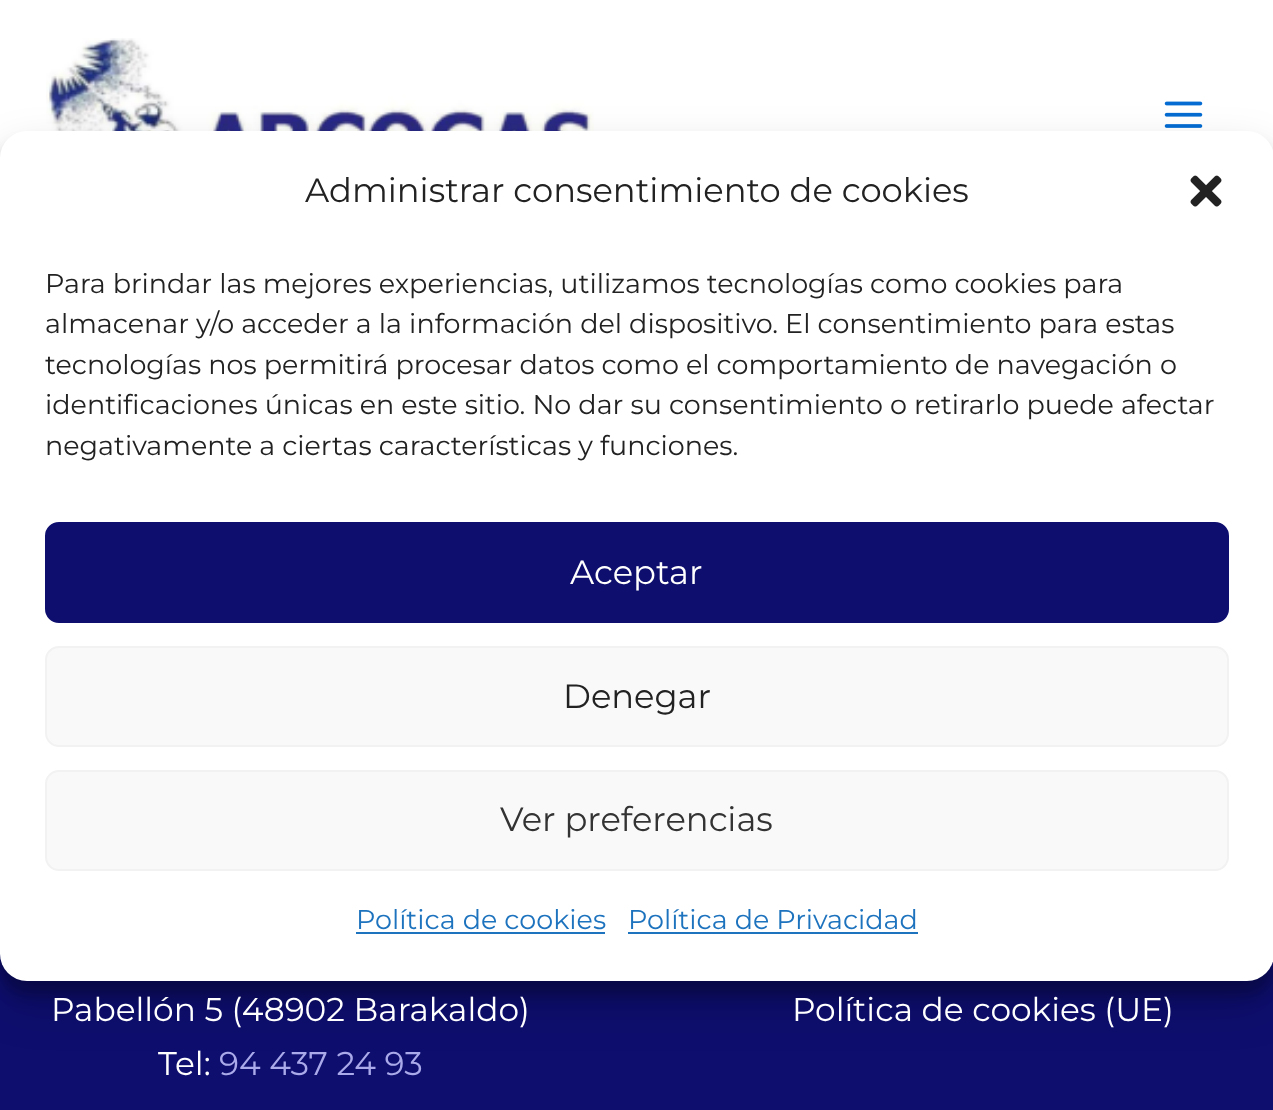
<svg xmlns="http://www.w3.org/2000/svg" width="1273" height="1110">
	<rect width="100%" height="100%" fill="#FFFFFF" />
	<image x="46" y="38" width="548" height="93" href="assets/img2.png" />
	<image x="1164" y="101" width="39" height="27" href="assets/img3.png" />
	<rect x="0" y="954" width="1273" height="156" fill="#0E0E6F" />
	<rect x="0" y="144" width="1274" height="851" rx="27" fill="#000000" fill-opacity="0.23" filter="blur(7px)" />
	<rect x="0" y="153" width="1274" height="851" rx="27" fill="#000000" fill-opacity="0.19" filter="blur(22.5px)" />
	<rect x="0" y="131" width="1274" height="850" rx="27" fill="#FFFFFF" />
	<text x="305" y="202" font-family="Montserrat" font-size="33.75" fill="#222222">Administrar consentimiento de cookies</text>
	<image x="1190" y="175" width="32" height="32" href="assets/img1.png" />
	<g font-family="Montserrat" font-size="27" fill="#222222">
		<text x="45" y="293">Para brindar las mejores experiencias, utilizamos tecnologías como cookies para</text>
		<text x="45" y="333">almacenar y/o acceder a la información del dispositivo. El consentimiento para estas</text>
		<text x="45" y="374">tecnologías nos permitirá procesar datos como el comportamiento de navegación o</text>
		<text x="45" y="414">identificaciones únicas en este sitio. No dar su consentimiento o retirarlo puede afectar</text>
		<text x="45" y="455">negativamente a ciertas características y funciones.</text>
	</g>
	<rect x="46" y="523" width="1182" height="99" rx="13" fill="#0E0E6F" stroke="#0E0E6F" stroke-width="2" />
	<text x="570" y="584" font-family="Montserrat" font-size="33.75" fill="#FFFFFF">Aceptar</text>
	<rect x="46" y="647" width="1182" height="99" rx="13" fill="#F9F9F9" stroke="#F2F2F2" stroke-width="2" />
	<text x="563" y="708" font-family="Montserrat" font-size="33.75" fill="#222222">Denegar</text>
	<rect x="46" y="771" width="1182" height="99" rx="13" fill="#F9F9F9" stroke="#F2F2F2" stroke-width="2" />
	<text x="500" y="831" font-family="Montserrat" font-size="33.75" fill="#333333">Ver preferencias</text>
	<text x="356" y="929" font-family="Montserrat" font-size="27" fill="#1E73BE">Política de cookies</text>
	<rect x="356" y="932" width="249" height="2" fill="#1E73BE" />
	<text x="628" y="929" font-family="Montserrat" font-size="27" fill="#1E73BE">Política de Privacidad</text>
	<rect x="628" y="932" width="290" height="2" fill="#1E73BE" />
	<g font-family="Montserrat" font-size="32.8" fill="#FFFFFF">
		<text x="51" y="1021">Pabellón 5 (48902 Barakaldo)</text>
		<text x="158" y="1075">Tel:</text>
	</g>
	<text x="219" y="1075" font-family="Montserrat" font-size="32.8" fill="#AAAAEA">94 437 24 93</text>
	<text x="792" y="1021" font-family="Montserrat" font-size="32.8" fill="#FFFFFF">Política de cookies (UE)</text>
</svg>
